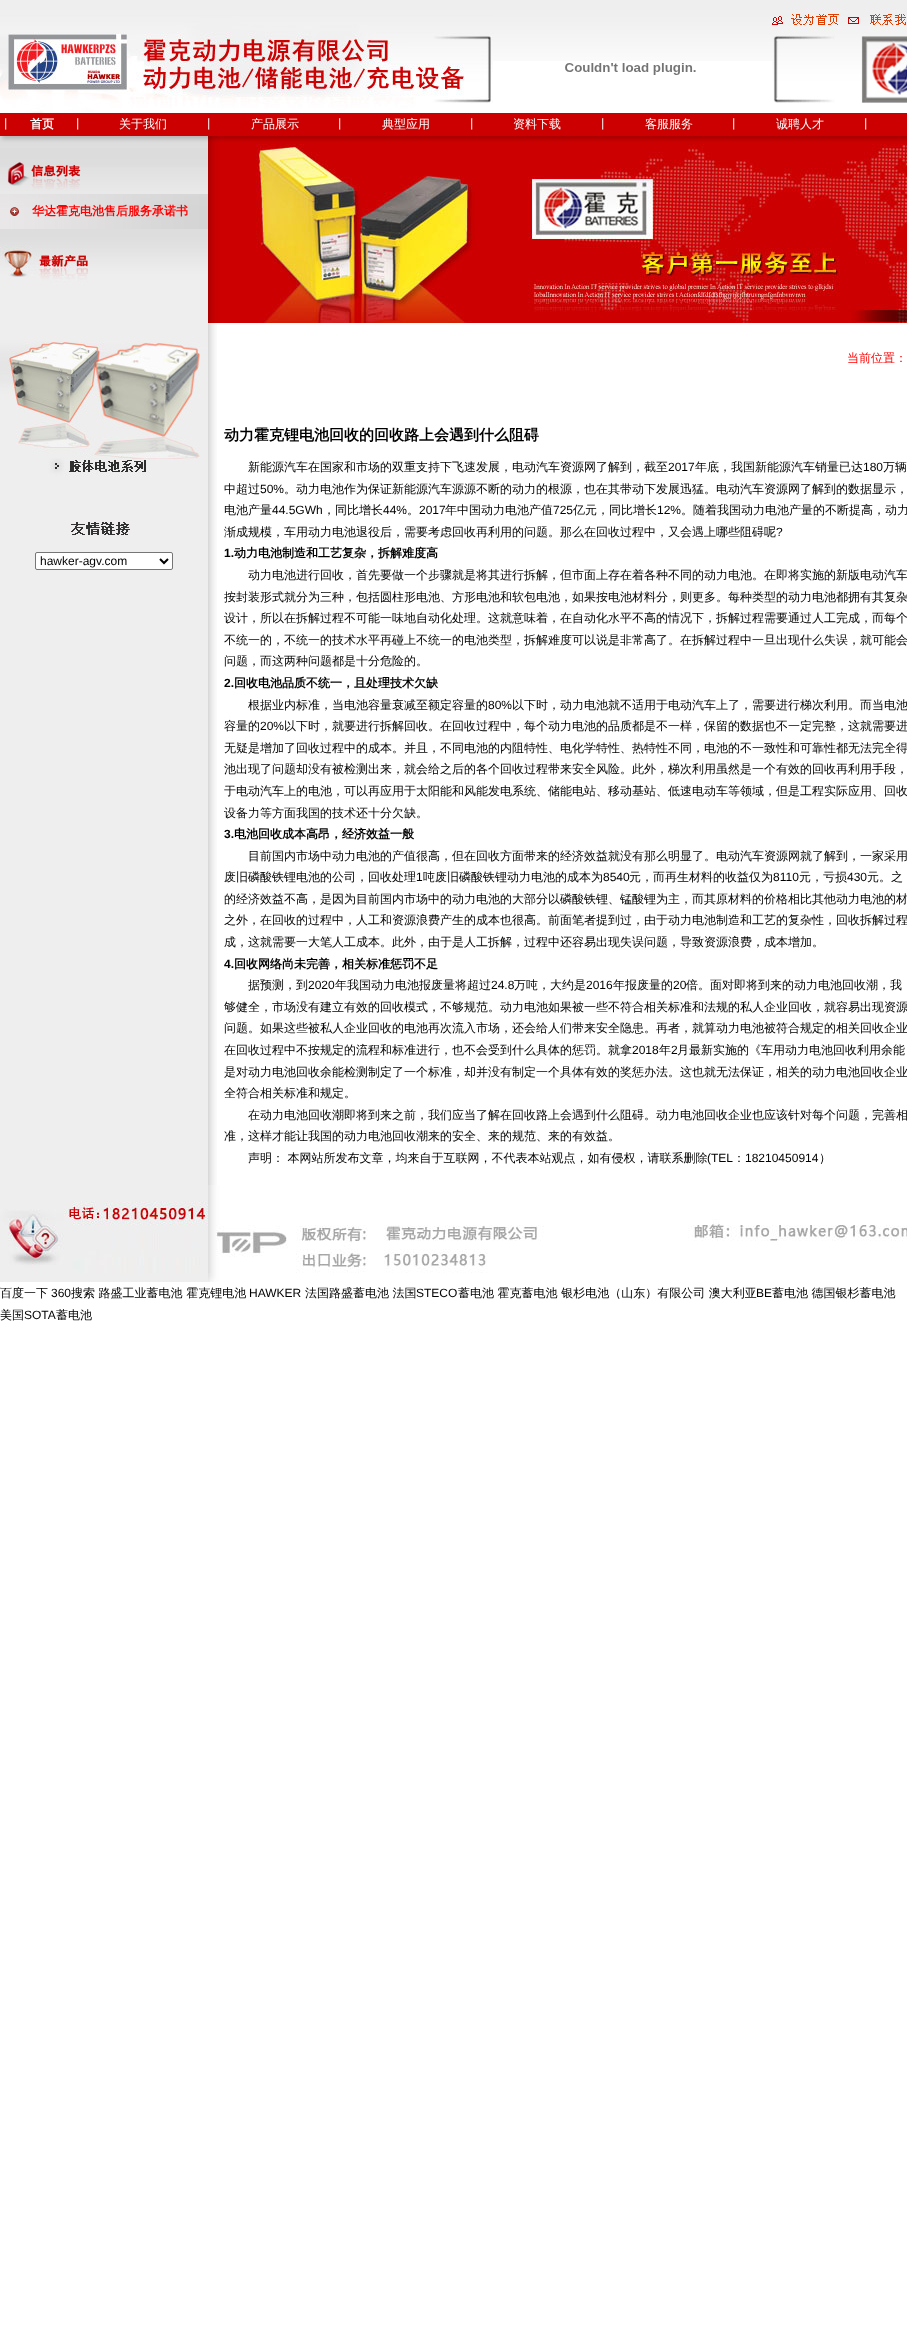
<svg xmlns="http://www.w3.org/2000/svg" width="907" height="2345">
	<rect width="100%" height="100%" fill="#FFFFFF" />
	<image x="0" y="0" width="907" height="61" href="assets/img1.png" />
	<image x="0" y="8" width="493" height="105" href="assets/img2.png" />
	<image x="493" y="8" width="279" height="24" href="assets/img3.png" />
	<image x="565" y="63" width="131" height="12" href="assets/img4.png" />
	<image x="772" y="8" width="135" height="95" href="assets/img5.png" />
	<rect x="0" y="113" width="907" height="23" fill="#CC0001" />
	<text x="0" y="128" font-family="WenQuanYi Zen Hei" font-size="12" font-weight="500" fill="#FFFFFF">丨</text>
	<text x="30" y="128" font-family="WenQuanYi Zen Hei" font-size="12" font-weight="700" fill="#FFFFFF">首页</text>
	<g font-family="WenQuanYi Zen Hei" font-size="12" font-weight="500" fill="#FFFFFF">
		<text x="72" y="128">丨</text>
		<text x="119" y="128">关于我们</text>
		<text x="203" y="128">丨</text>
		<text x="251" y="128">产品展示</text>
		<text x="334" y="128">丨</text>
		<text x="382" y="128">典型应用</text>
		<text x="466" y="128">丨</text>
		<text x="513" y="128">资料下载</text>
		<text x="597" y="128">丨</text>
		<text x="645" y="128">客服服务</text>
		<text x="728" y="128">丨</text>
		<text x="776" y="128">诚聘人才</text>
		<text x="860" y="128">丨</text>
	</g>
	<rect x="0" y="477" width="208" height="708" fill="#EEEEEE" />
	<image x="0" y="136" width="208" height="58" href="assets/img6.png" />
	<image x="0" y="194" width="208" height="35" href="assets/img7.png" />
	<image x="10" y="207" width="9" height="9" href="assets/img8.png" />
	<text x="32" y="215" font-family="WenQuanYi Zen Hei" font-size="12" font-weight="700" fill="#FF0000">华达霍克电池售后服务承诺书</text>
	<image x="0" y="229" width="208" height="248" href="assets/img9.png" />
	<image x="70" y="520" width="60" height="15" href="assets/img10.png" />
	<rect x="35.5" y="552.5" width="137" height="17" rx="1.5" fill="#FFFFFF" stroke="#767676" />
	<path d="M160 559L164 563L168 559" fill="none" stroke="#000000" stroke-width="2" />
	<text x="40" y="565" font-family="Liberation Sans" font-size="12" fill="#000000">hawker-agv.com</text>
	<image x="208" y="323" width="9" height="862" href="assets/img11.png" />
	<image x="208" y="136" width="699" height="187" href="assets/img12.png" />
	<text x="847" y="362" font-family="WenQuanYi Zen Hei" font-size="12" font-weight="500" fill="#FF0000">当前位置：</text>
	<text x="224" y="440" font-family="WenQuanYi Zen Hei" font-size="15" font-weight="700" fill="#000000">动力霍克锂电池回收的回收路上会遇到什么阻碍</text>
	<text x="248" y="471" font-family="WenQuanYi Zen Hei" font-size="12" font-weight="500" fill="#000000">新能源汽车在国家和市场的双重支持下飞速发展，电动汽车资源网了解到，截至</text>
	<text x="668" y="471" font-family="Liberation Sans" font-size="12" fill="#000000">2017</text>
	<text x="695" y="471" font-family="WenQuanYi Zen Hei" font-size="12" font-weight="500" fill="#000000">年底，我国新能源汽车销量已达</text>
	<text x="863" y="471" font-family="Liberation Sans" font-size="12" fill="#000000">180</text>
	<g font-family="WenQuanYi Zen Hei" font-size="12" font-weight="500" fill="#000000">
		<text x="883" y="471">万辆</text>
		<text x="224" y="493">中超过</text>
	</g>
	<text x="260" y="493" font-family="Liberation Sans" font-size="12" fill="#000000">50%</text>
	<g font-family="WenQuanYi Zen Hei" font-size="12" font-weight="500" fill="#000000">
		<text x="284" y="493">。动力电池作为保证新能源汽车源源不断的动力的根源，也在其带动下发展迅猛。电动汽车资源网了解到的数据显示，</text>
		<text x="224" y="514">电池产量</text>
	</g>
	<text x="272" y="514" font-family="Liberation Sans" font-size="12" fill="#000000">44.5GWh</text>
	<text x="323" y="514" font-family="WenQuanYi Zen Hei" font-size="12" font-weight="500" fill="#000000">，同比增长</text>
	<text x="383" y="514" font-family="Liberation Sans" font-size="12" fill="#000000">44%</text>
	<text x="407" y="514" font-family="WenQuanYi Zen Hei" font-size="12" font-weight="500" fill="#000000">。</text>
	<text x="419" y="514" font-family="Liberation Sans" font-size="12" fill="#000000">2017</text>
	<text x="445" y="514" font-family="WenQuanYi Zen Hei" font-size="12" font-weight="500" fill="#000000">年中国动力电池产值</text>
	<text x="553" y="514" font-family="Liberation Sans" font-size="12" fill="#000000">725</text>
	<text x="573" y="514" font-family="WenQuanYi Zen Hei" font-size="12" font-weight="500" fill="#000000">亿元，同比增长</text>
	<text x="657" y="514" font-family="Liberation Sans" font-size="12" fill="#000000">12%</text>
	<g font-family="WenQuanYi Zen Hei" font-size="12" font-weight="500" fill="#000000">
		<text x="681" y="514">。随着我国动力电池产量的不断提高，动力</text>
		<text x="224" y="536">渐成规模，车用动力电池退役后，需要考虑回收再利用的问题。那么在回收过程中，又会遇上哪些阻碍呢</text>
	</g>
	<text x="776" y="536" font-family="Liberation Sans" font-size="12" fill="#000000">?</text>
	<text x="224" y="557" font-family="Liberation Sans" font-size="12" font-weight="700" fill="#000000">1.</text>
	<text x="234" y="557" font-family="WenQuanYi Zen Hei" font-size="12" font-weight="700" fill="#000000">动力电池制造和工艺复杂，拆解难度高</text>
	<g font-family="WenQuanYi Zen Hei" font-size="12" font-weight="500" fill="#000000">
		<text x="248" y="579">动力电池进行回收，首先要做一个步骤就是将其进行拆解，但市面上存在着各种不同的动力电池。在即将实施的新版电动汽车</text>
		<text x="224" y="601">按封装形式就分为三种，包括圆柱形电池、方形电池和软包电池，如果按电池材料分，则更多。每种类型的动力电池都拥有其复杂</text>
		<text x="224" y="622">设计，所以在拆解过程不可能一味地自动化处理。这就意味着，在自动化水平不高的情况下，拆解过程需要通过人工完成，而每个</text>
		<text x="224" y="644">不统一的，不统一的技术水平再碰上不统一的电池类型，拆解难度可以说是非常高了。在拆解过程中一旦出现什么失误，就可能会</text>
		<text x="224" y="665">问题，而这两种问题都是十分危险的。</text>
	</g>
	<text x="224" y="687" font-family="Liberation Sans" font-size="12" font-weight="700" fill="#000000">2.</text>
	<text x="234" y="687" font-family="WenQuanYi Zen Hei" font-size="12" font-weight="700" fill="#000000">回收电池品质不统一，且处理技术欠缺</text>
	<text x="248" y="709" font-family="WenQuanYi Zen Hei" font-size="12" font-weight="500" fill="#000000">根据业内标准，当电池容量衰减至额定容量的</text>
	<text x="488" y="709" font-family="Liberation Sans" font-size="12" fill="#000000">80%</text>
	<g font-family="WenQuanYi Zen Hei" font-size="12" font-weight="500" fill="#000000">
		<text x="512" y="709">以下时，动力电池就不适用于电动汽车上了，需要进行梯次利用。而当电池</text>
		<text x="224" y="730">容量的</text>
	</g>
	<text x="260" y="730" font-family="Liberation Sans" font-size="12" fill="#000000">20%</text>
	<g font-family="WenQuanYi Zen Hei" font-size="12" font-weight="500" fill="#000000">
		<text x="284" y="730">以下时，就要进行拆解回收。在回收过程中，每个动力电池的品质都是不一样，保留的数据也不一定完整，这就需要进</text>
		<text x="224" y="752">无疑是增加了回收过程中的成本。并且，不同电池的内阻特性、电化学特性、热特性不同，电池的不一致性和可靠性都无法完全得</text>
		<text x="224" y="773">池出现了问题却没有被检测出来，就会给之后的各个回收过程带来安全风险。此外，梯次利用虽然是一个有效的回收再利用手段，</text>
		<text x="224" y="795">于电动汽车上的电池，可以再应用于太阳能和风能发电系统、储能电站、移动基站、低速电动车等领域，但是工程实际应用、回收</text>
		<text x="224" y="817">设备力等方面我国的技术还十分欠缺。</text>
	</g>
	<text x="224" y="838" font-family="Liberation Sans" font-size="12" font-weight="700" fill="#000000">3.</text>
	<text x="234" y="838" font-family="WenQuanYi Zen Hei" font-size="12" font-weight="700" fill="#000000">电池回收成本高昂，经济效益一般</text>
	<g font-family="WenQuanYi Zen Hei" font-size="12" font-weight="500" fill="#000000">
		<text x="248" y="860">目前国内市场中动力电池的产值很高，但在回收方面带来的经济效益就没有那么明显了。电动汽车资源网就了解到，一家采用</text>
		<text x="224" y="881">废旧磷酸铁锂电池的公司，回收处理</text>
	</g>
	<text x="416" y="881" font-family="Liberation Sans" font-size="12" fill="#000000">1</text>
	<text x="423" y="881" font-family="WenQuanYi Zen Hei" font-size="12" font-weight="500" fill="#000000">吨废旧磷酸铁锂动力电池的成本为</text>
	<text x="603" y="881" font-family="Liberation Sans" font-size="12" fill="#000000">8540</text>
	<text x="629" y="881" font-family="WenQuanYi Zen Hei" font-size="12" font-weight="500" fill="#000000">元，而再生材料的收益仅为</text>
	<text x="773" y="881" font-family="Liberation Sans" font-size="12" fill="#000000">8110</text>
	<text x="799" y="881" font-family="WenQuanYi Zen Hei" font-size="12" font-weight="500" fill="#000000">元，亏损</text>
	<text x="847" y="881" font-family="Liberation Sans" font-size="12" fill="#000000">430</text>
	<g font-family="WenQuanYi Zen Hei" font-size="12" font-weight="500" fill="#000000">
		<text x="867" y="881">元。之</text>
		<text x="224" y="903">的经济效益不高，是因为目前国内市场中的动力电池的大部分以磷酸铁锂、锰酸锂为主，而其原材料的价格相比其他动力电池的材</text>
		<text x="224" y="924">之外，在回收的过程中，人工和资源浪费产生的成本也很高。前面笔者提到过，由于动力电池制造和工艺的复杂性，回收拆解过程</text>
		<text x="224" y="946">成，这就需要一大笔人工成本。此外，由于是人工拆解，过程中还容易出现失误问题，导致资源浪费，成本增加。</text>
	</g>
	<text x="224" y="968" font-family="Liberation Sans" font-size="12" font-weight="700" fill="#000000">4.</text>
	<text x="234" y="968" font-family="WenQuanYi Zen Hei" font-size="12" font-weight="700" fill="#000000">回收网络尚未完善，相关标准惩罚不足</text>
	<text x="248" y="989" font-family="WenQuanYi Zen Hei" font-size="12" font-weight="500" fill="#000000">据预测，到</text>
	<text x="308" y="989" font-family="Liberation Sans" font-size="12" fill="#000000">2020</text>
	<text x="335" y="989" font-family="WenQuanYi Zen Hei" font-size="12" font-weight="500" fill="#000000">年我国动力电池报废量将超过</text>
	<text x="491" y="989" font-family="Liberation Sans" font-size="12" fill="#000000">24.8</text>
	<text x="514" y="989" font-family="WenQuanYi Zen Hei" font-size="12" font-weight="500" fill="#000000">万吨，大约是</text>
	<text x="586" y="989" font-family="Liberation Sans" font-size="12" fill="#000000">2016</text>
	<text x="613" y="989" font-family="WenQuanYi Zen Hei" font-size="12" font-weight="500" fill="#000000">年报废量的</text>
	<text x="673" y="989" font-family="Liberation Sans" font-size="12" fill="#000000">20</text>
	<g font-family="WenQuanYi Zen Hei" font-size="12" font-weight="500" fill="#000000">
		<text x="686" y="989">倍。面对即将到来的动力电池回收潮，我</text>
		<text x="224" y="1011">够健全，市场没有建立有效的回收模式，不够规范。动力电池如果被一些不符合相关标准和法规的私人企业回收，就容易出现资源</text>
		<text x="224" y="1032">问题。如果这些被私人企业回收的电池再次流入市场，还会给人们带来安全隐患。再者，就算动力电池被符合规定的相关回收企业</text>
		<text x="224" y="1054">在回收过程中不按规定的流程和标准进行，也不会受到什么具体的惩罚。就拿</text>
	</g>
	<text x="632" y="1054" font-family="Liberation Sans" font-size="12" fill="#000000">2018</text>
	<text x="659" y="1054" font-family="WenQuanYi Zen Hei" font-size="12" font-weight="500" fill="#000000">年</text>
	<text x="671" y="1054" font-family="Liberation Sans" font-size="12" fill="#000000">2</text>
	<g font-family="WenQuanYi Zen Hei" font-size="12" font-weight="500" fill="#000000">
		<text x="677" y="1054">月最新实施的《车用动力电池回收利用余能</text>
		<text x="224" y="1076">是对动力电池回收余能检测制定了一个标准，却并没有制定一个具体有效的奖惩办法。这也就无法保证，相关的动力电池回收企业</text>
		<text x="224" y="1097">全符合相关标准和规定。</text>
		<text x="248" y="1119">在动力电池回收潮即将到来之前，我们应当了解在回收路上会遇到什么阻碍。动力电池回收企业也应该针对每个问题，完善相</text>
		<text x="224" y="1140">准，这样才能让我国的动力电池回收潮来的安全、来的规范、来的有效益。</text>
		<text x="248" y="1162">声明： 本网站所发布文章，均来自于互联网，不代表本站观点，如有侵权，请联系删除</text>
	</g>
	<text x="707" y="1162" font-family="Liberation Sans" font-size="12" fill="#000000">(TEL</text>
	<text x="733" y="1162" font-family="WenQuanYi Zen Hei" font-size="12" font-weight="500" fill="#000000">：</text>
	<text x="745" y="1162" font-family="Liberation Sans" font-size="12" fill="#000000">18210450914</text>
	<text x="819" y="1162" font-family="WenQuanYi Zen Hei" font-size="12" font-weight="500" fill="#000000">）</text>
	<image x="0" y="1185" width="907" height="97" href="assets/img13.png" />
	<text x="0" y="1297" font-family="WenQuanYi Zen Hei" font-size="12" font-weight="500" fill="#000000">百度一下</text>
	<text x="51" y="1297" font-family="Liberation Sans" font-size="12" fill="#000000">360</text>
	<text x="71" y="1297" font-family="WenQuanYi Zen Hei" font-size="12" font-weight="500" fill="#000000">搜索 路盛工业蓄电池 霍克锂电池</text>
	<text x="249" y="1297" font-family="Liberation Sans" font-size="12" fill="#000000">HAWKER</text>
	<text x="305" y="1297" font-family="WenQuanYi Zen Hei" font-size="12" font-weight="500" fill="#000000">法国路盛蓄电池 法国</text>
	<text x="416" y="1297" font-family="Liberation Sans" font-size="12" fill="#000000">STECO</text>
	<text x="458" y="1297" font-family="WenQuanYi Zen Hei" font-size="12" font-weight="500" fill="#000000">蓄电池 霍克蓄电池 银杉电池（山东）有限公司 澳大利亚</text>
	<text x="756" y="1297" font-family="Liberation Sans" font-size="12" fill="#000000">BE</text>
	<g font-family="WenQuanYi Zen Hei" font-size="12" font-weight="500" fill="#000000">
		<text x="772" y="1297">蓄电池 德国银杉蓄电池</text>
		<text x="0" y="1319">美国</text>
	</g>
	<text x="24" y="1319" font-family="Liberation Sans" font-size="12" fill="#000000">SOTA</text>
	<text x="56" y="1319" font-family="WenQuanYi Zen Hei" font-size="12" font-weight="500" fill="#000000">蓄电池</text>
</svg>
